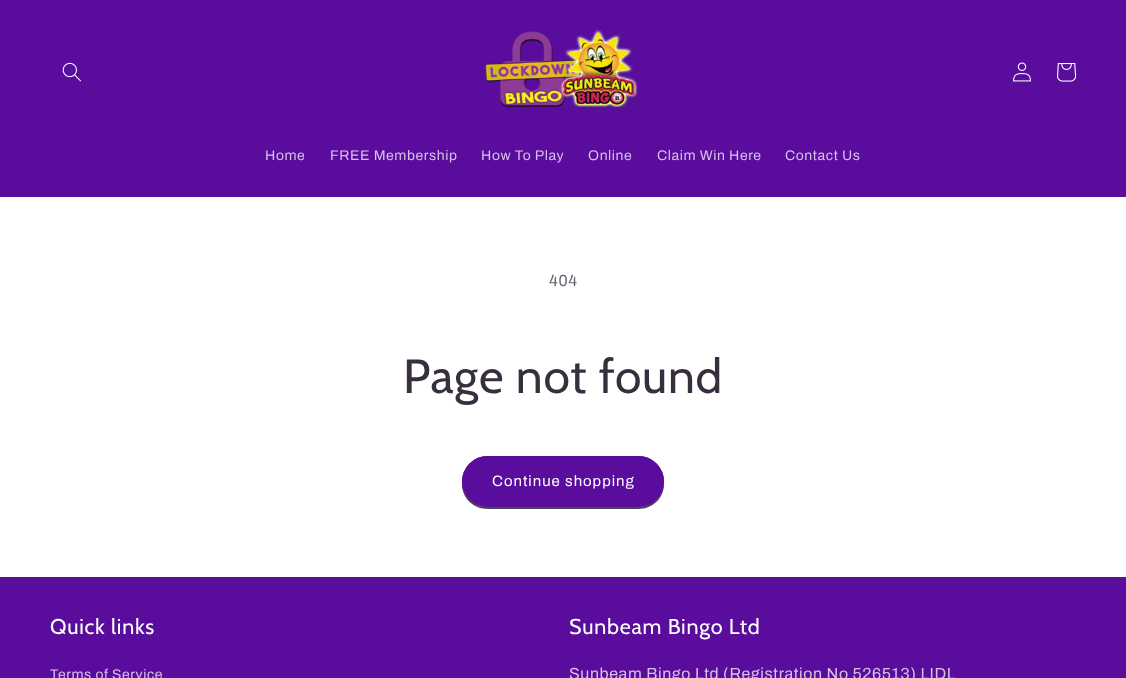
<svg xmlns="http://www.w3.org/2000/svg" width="1126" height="678">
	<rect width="100%" height="100%" fill="#FFFFFF" />
	<rect x="0" y="0" width="1126" height="197" fill="#5A0C9D" />
	<image x="62" y="62" width="19" height="20" href="assets/img1.png" />
	<image x="485" y="29" width="153" height="80" href="assets/img2.png" />
	<image x="1013" y="62" width="18" height="20" href="assets/img3.png" />
	<image x="1057" y="63" width="20" height="19" href="assets/img4.png" />
	<g font-family="Archivo" font-size="14" letter-spacing="0.6" fill="#D6C2E7">
		<text x="265" y="160">Home</text>
		<text x="330" y="160">FREE Membership</text>
		<text x="481" y="160">How To Play</text>
		<text x="588" y="160">Online</text>
		<text x="657" y="160">Claim Win Here</text>
		<text x="785" y="160">Contact Us</text>
	</g>
	<text x="549" y="286" font-family="Archivo" font-size="16" letter-spacing="0.6" fill="#69636E">404</text>
	<text x="403" y="393" font-family="Cabin" font-size="48" letter-spacing="0.75" fill="#372F3E">Page not found</text>
	<path d="M462 482V484C462 498 473 509 488 509H638C653 509 664 498 664 484V482C663 496 652 507 638 507H488C474 507 463 496 462 482Z" fill="#4B4451" />
	<rect x="462" y="456" width="202" height="51" rx="25.5" fill="#5A0C9D" />
	<rect x="463.5" y="457.5" width="199" height="48" rx="24" fill="none" stroke="#5A0C9D" stroke-width="3" />
	<text x="492" y="486" font-family="Archivo" font-size="15" letter-spacing="1" fill="#FFFFFF">Continue shopping</text>
	<rect x="0" y="577" width="1126" height="101" fill="#5A0C9D" />
	<text x="50" y="634" font-family="Cabin" font-size="21.5" letter-spacing="0.75" fill="#FFFFFF">Quick links</text>
	<text x="50" y="679" font-family="Archivo" font-size="14" letter-spacing="0.6" fill="#D6C2E7">Terms of Service</text>
	<text x="569" y="634" font-family="Cabin" font-size="21.5" letter-spacing="0.75" fill="#FFFFFF">Sunbeam Bingo Ltd</text>
	<text x="569" y="679" font-family="Archivo" font-size="16" letter-spacing="0.6" fill="#D6C2E7">Sunbeam Bingo Ltd (Registration No 526513) LIDL</text>
</svg>
